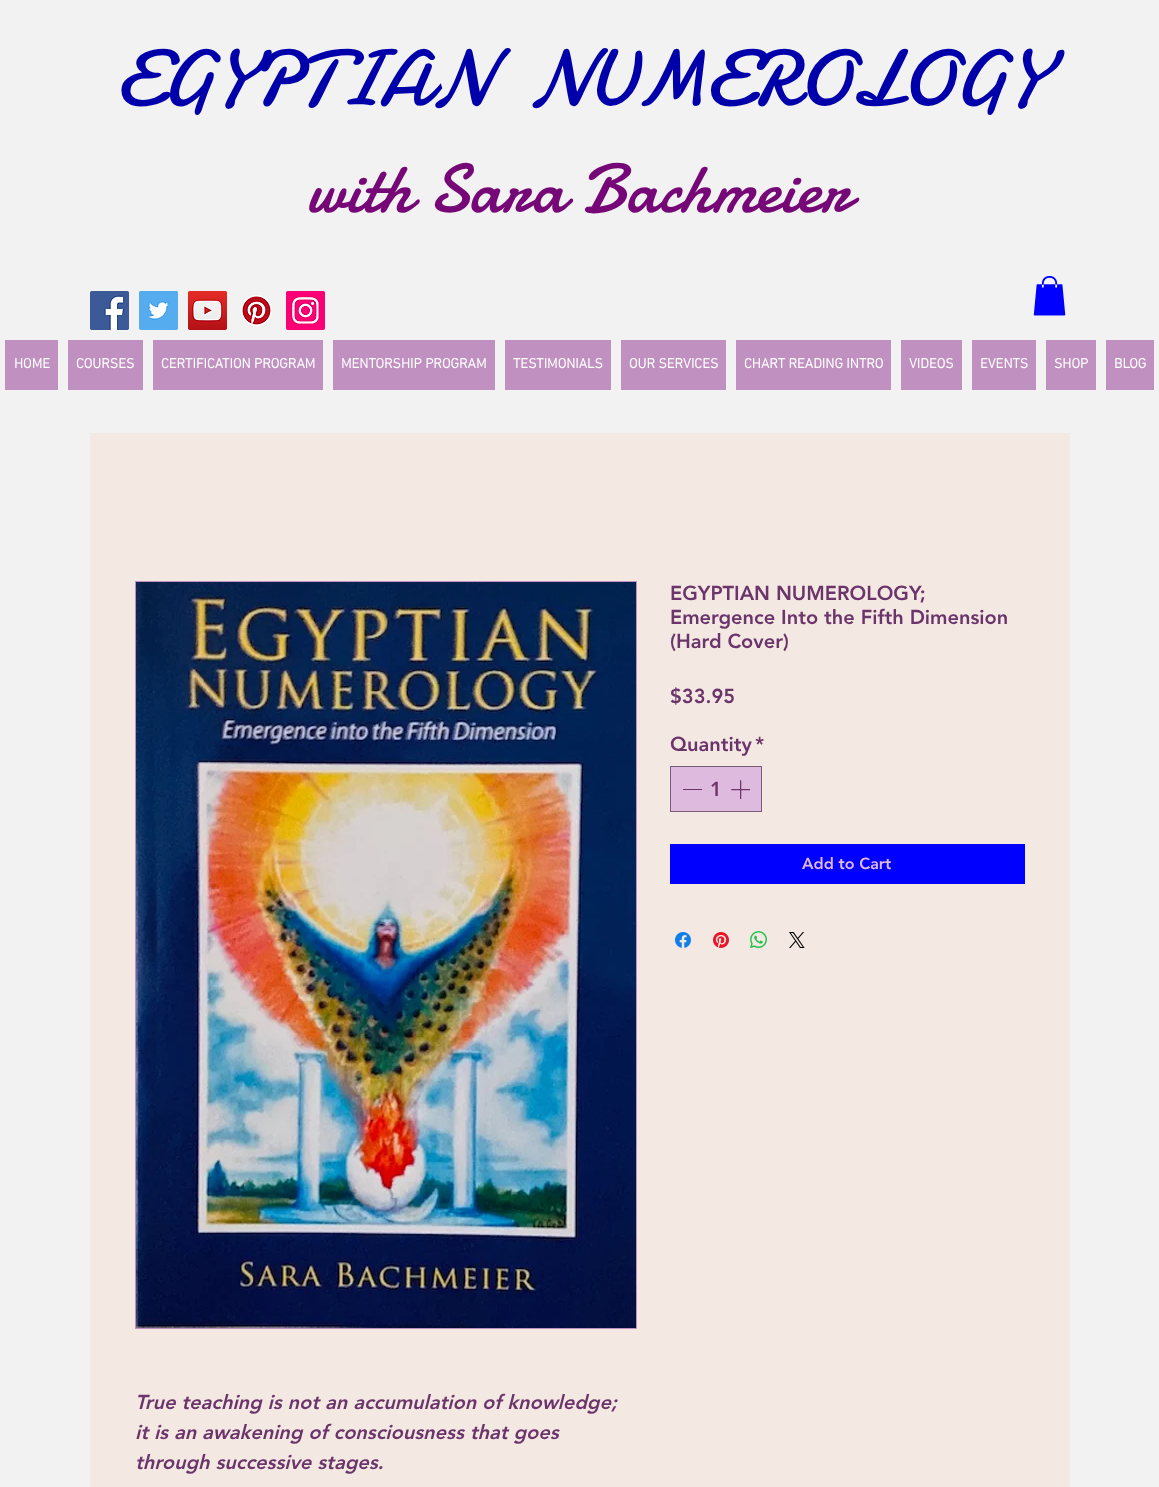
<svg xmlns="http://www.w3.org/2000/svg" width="1159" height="1487">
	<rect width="100%" height="100%" fill="#F2F2F2" />
	<text x="116" y="105" font-family="Damion" font-size="80" fill="#0000AA" xml:space="preserve">EGYPTIAN  NUMEROLOGY</text>
	<text x="308" y="212" font-family="Damion" font-size="70" fill="#760776">with Sara Bachmeier</text>
	<image x="90" y="291" width="39" height="39" href="assets/img1.png" />
	<image x="139" y="291" width="39" height="39" href="assets/img2.png" />
	<image x="188" y="291" width="39" height="39" href="assets/img3.png" />
	<image x="241" y="295" width="31" height="31" href="assets/img4.png" />
	<image x="286" y="291" width="39" height="39" href="assets/img5.png" />
	<image x="1033" y="276" width="33" height="40" href="assets/img6.png" />
	<rect x="5" y="340" width="53" height="50" fill="#C090C0" />
	<text x="14" y="368" font-family="'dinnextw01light'" font-size="14" font-weight="700" fill="#FFFFFF">HOME</text>
	<rect x="68" y="340" width="75" height="50" fill="#C090C0" />
	<text x="76" y="368" font-family="'dinnextw01light'" font-size="14" font-weight="700" fill="#FFFFFF">COURSES</text>
	<rect x="153" y="340" width="170" height="50" fill="#C090C0" />
	<text x="161" y="368" font-family="'dinnextw01light'" font-size="14" font-weight="700" fill="#FFFFFF">CERTIFICATION PROGRAM</text>
	<rect x="333" y="340" width="162" height="50" fill="#C090C0" />
	<text x="341" y="368" font-family="'dinnextw01light'" font-size="14" font-weight="700" fill="#FFFFFF">MENTORSHIP PROGRAM</text>
	<rect x="505" y="340" width="106" height="50" fill="#C090C0" />
	<text x="513" y="368" font-family="'dinnextw01light'" font-size="14" font-weight="700" fill="#FFFFFF">TESTIMONIALS</text>
	<rect x="621" y="340" width="105" height="50" fill="#C090C0" />
	<text x="629" y="368" font-family="'dinnextw01light'" font-size="14" font-weight="700" fill="#FFFFFF">OUR SERVICES</text>
	<rect x="736" y="340" width="155" height="50" fill="#C090C0" />
	<text x="744" y="368" font-family="'dinnextw01light'" font-size="14" font-weight="700" fill="#FFFFFF">CHART READING INTRO</text>
	<rect x="901" y="340" width="61" height="50" fill="#C090C0" />
	<text x="909" y="368" font-family="'dinnextw01light'" font-size="14" font-weight="700" fill="#FFFFFF">VIDEOS</text>
	<rect x="972" y="340" width="64" height="50" fill="#C090C0" />
	<text x="980" y="368" font-family="'dinnextw01light'" font-size="14" font-weight="700" fill="#FFFFFF">EVENTS</text>
	<rect x="1046" y="340" width="50" height="50" fill="#C090C0" />
	<text x="1054" y="368" font-family="'dinnextw01light'" font-size="14" font-weight="700" fill="#FFFFFF">SHOP</text>
	<rect x="1106" y="340" width="48" height="50" fill="#C090C0" />
	<text x="1114" y="368" font-family="'dinnextw01light'" font-size="14" font-weight="700" fill="#FFFFFF">BLOG</text>
	<rect x="90" y="433" width="980" height="1054" fill="#F4E8E2" />
	<g font-family="'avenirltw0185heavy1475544'" font-size="20" font-weight="900" fill="#6B356B">
		<text x="670" y="600">EGYPTIAN NUMEROLOGY;</text>
		<text x="670" y="624">Emergence Into the Fifth Dimension</text>
		<text x="670" y="648">(Hard Cover)</text>
		<text x="670" y="703">$33.95</text>
		<text x="670" y="751">Quantity</text>
		<text x="755" y="751">*</text>
	</g>
	<rect x="670.5" y="766.5" width="91" height="45" fill="#DFBADF" stroke="#795B79" />
	<rect x="683" y="789" width="19" height="1" fill="#6B356B" />
	<text x="710" y="796" font-family="'avenirltw0185heavy1475544'" font-size="20" font-weight="900" fill="#6B356B">1</text>
	<image x="731" y="780" width="19" height="19" href="assets/img7.png" />
	<rect x="670" y="844" width="355" height="40" fill="#0000FF" />
	<text x="802" y="869" font-family="'avenirltw0185heavy1475544'" font-size="16" font-weight="900" fill="#DFBADF">Add to Cart</text>
	<image x="675" y="932" width="16" height="16" href="assets/img8.png" />
	<image x="713" y="932" width="16" height="16" href="assets/img9.png" />
	<image x="750" y="931" width="17" height="17" href="assets/img10.png" />
	<image x="789" y="932" width="16" height="16" href="assets/img11.png" />
	<rect x="135.5" y="581.5" width="501" height="747" fill="none" stroke="#C090C0" />
	<image x="136" y="582" width="500" height="746" href="assets/img12.png" />
	<g font-family="'avenirltw0185heavy1475544'" font-size="20" font-weight="900" font-style="italic" fill="#6B356B">
		<text x="135" y="1409">True teaching is not an accumulation of knowledge;</text>
		<text x="135" y="1439">it is an awakening of consciousness that goes</text>
		<text x="135" y="1469">through successive stages.</text>
	</g>
</svg>
